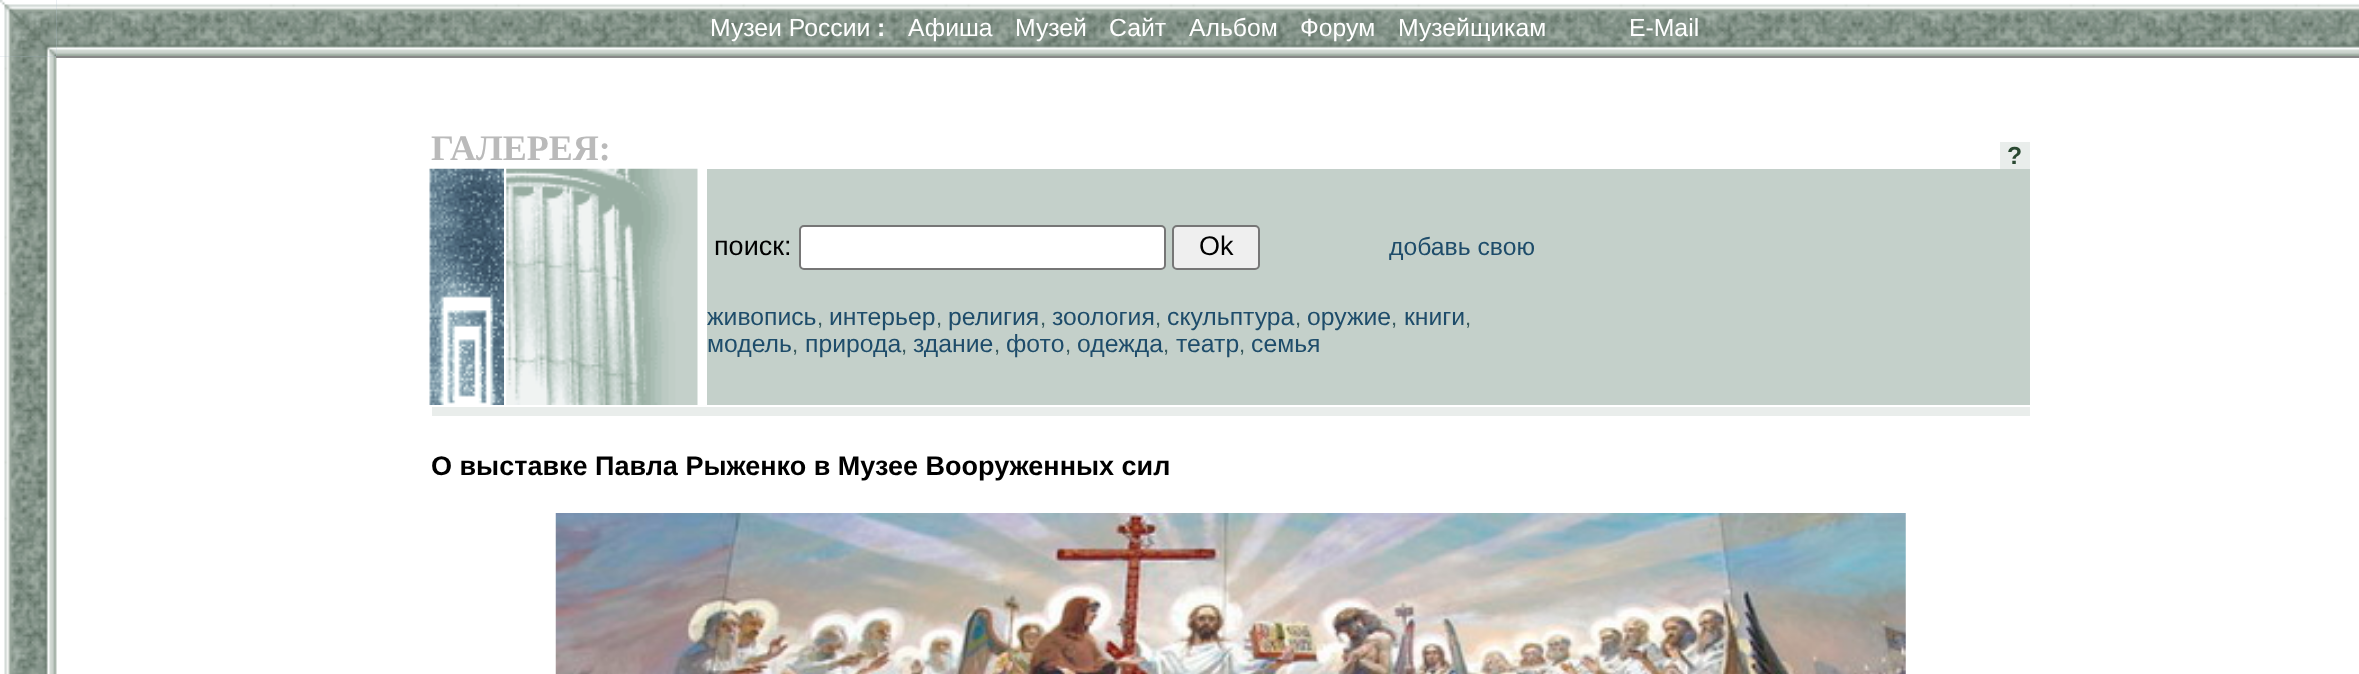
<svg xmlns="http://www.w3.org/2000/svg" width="2359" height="674">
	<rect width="100%" height="100%" fill="#FFFFFF" />
	<image x="4" y="0" width="53" height="674" href="assets/img1.png" />
	<image x="0" y="0" width="57" height="57" href="assets/img2.png" />
	<image x="56" y="0" width="2303" height="56" href="assets/img3.png" />
	<text x="710" y="36" font-family="Liberation Sans" font-size="24.75" fill="#FFFFFF">Музеи России</text>
	<text x="877" y="36" font-family="Liberation Sans" font-size="24.75" font-weight="700" fill="#FFFFFF">:</text>
	<g font-family="Liberation Sans" font-size="24.75" fill="#FFFFFF">
		<text x="908" y="36">Афиша</text>
		<text x="1015" y="36">Музей</text>
		<text x="1109" y="36">Сайт</text>
		<text x="1189" y="36">Альбом</text>
		<text x="1300" y="36">Форум</text>
		<text x="1398" y="36">Музейщикам</text>
		<text x="1629" y="36">E-Mail</text>
	</g>
	<rect x="56" y="56" width="2303" height="2" fill="#888888" />
	<text x="431" y="160" font-family="Liberation Serif" font-size="36" font-weight="700" fill="#BABABA">ГАЛЕРЕЯ:</text>
	<rect x="2000" y="142" width="30" height="27" fill="#E9EDEB" />
	<text x="2007" y="164" font-family="Liberation Sans" font-size="24.75" font-weight="700" fill="#2A4931">?</text>
	<image x="429" y="168" width="75" height="237" href="assets/img4.png" />
	<image x="506" y="168" width="192" height="237" href="assets/img5.png" />
	<rect x="707" y="169" width="1323" height="236" fill="#C4D0CA" />
	<text x="714" y="255" font-family="Liberation Sans" font-size="27" fill="#000000">поиск:</text>
	<rect x="800" y="226" width="365" height="43" rx="4" fill="#FFFFFF" stroke="#767676" stroke-width="2" />
	<rect x="1173" y="226" width="86" height="43" rx="4" fill="#EFEFEF" stroke="#767676" stroke-width="2" />
	<text x="1199" y="255" font-family="Liberation Sans" font-size="27" fill="#000000">Ok</text>
	<g font-family="Liberation Sans" font-size="24.75" fill="#1E4C6A">
		<text x="1389" y="255">добавь свою</text>
		<text x="707" y="325">живопись</text>
	</g>
	<text x="817" y="325" font-family="Liberation Sans" font-size="22" fill="#39595C">,</text>
	<text x="829" y="325" font-family="Liberation Sans" font-size="24.75" fill="#1E4C6A">интерьер</text>
	<text x="936" y="325" font-family="Liberation Sans" font-size="22" fill="#39595C">,</text>
	<text x="948" y="325" font-family="Liberation Sans" font-size="24.75" fill="#1E4C6A">религия</text>
	<text x="1040" y="325" font-family="Liberation Sans" font-size="22" fill="#39595C">,</text>
	<text x="1052" y="325" font-family="Liberation Sans" font-size="24.75" fill="#1E4C6A">зоология</text>
	<text x="1155" y="325" font-family="Liberation Sans" font-size="22" fill="#39595C">,</text>
	<text x="1167" y="325" font-family="Liberation Sans" font-size="24.75" fill="#1E4C6A">скульптура</text>
	<text x="1295" y="325" font-family="Liberation Sans" font-size="22" fill="#39595C">,</text>
	<text x="1307" y="325" font-family="Liberation Sans" font-size="24.75" fill="#1E4C6A">оружие</text>
	<text x="1391" y="325" font-family="Liberation Sans" font-size="22" fill="#39595C">,</text>
	<text x="1404" y="325" font-family="Liberation Sans" font-size="24.75" fill="#1E4C6A">книги</text>
	<text x="1465" y="325" font-family="Liberation Sans" font-size="22" fill="#39595C">,</text>
	<text x="707" y="352" font-family="Liberation Sans" font-size="24.75" fill="#1E4C6A">модель</text>
	<text x="792" y="352" font-family="Liberation Sans" font-size="22" fill="#39595C">,</text>
	<text x="805" y="352" font-family="Liberation Sans" font-size="24.75" fill="#1E4C6A">природа</text>
	<text x="901" y="352" font-family="Liberation Sans" font-size="22" fill="#39595C">,</text>
	<text x="913" y="352" font-family="Liberation Sans" font-size="24.75" fill="#1E4C6A">здание</text>
	<text x="994" y="352" font-family="Liberation Sans" font-size="22" fill="#39595C">,</text>
	<text x="1006" y="352" font-family="Liberation Sans" font-size="24.75" fill="#1E4C6A">фото</text>
	<text x="1065" y="352" font-family="Liberation Sans" font-size="22" fill="#39595C">,</text>
	<text x="1077" y="352" font-family="Liberation Sans" font-size="24.75" fill="#1E4C6A">одежда</text>
	<text x="1163" y="352" font-family="Liberation Sans" font-size="22" fill="#39595C">,</text>
	<text x="1176" y="352" font-family="Liberation Sans" font-size="24.75" fill="#1E4C6A">театр</text>
	<text x="1239" y="352" font-family="Liberation Sans" font-size="22" fill="#39595C">,</text>
	<text x="1251" y="352" font-family="Liberation Sans" font-size="24.75" fill="#1E4C6A">семья</text>
	<rect x="432" y="407" width="1598" height="9" fill="#E9EDEB" />
	<text x="431" y="475" font-family="Liberation Sans" font-size="27" font-weight="700" fill="#000000">О выставке Павла Рыженко в Музее Вооруженных сил</text>
	<image x="555" y="513" width="1351" height="161" href="assets/img6.png" />
</svg>
